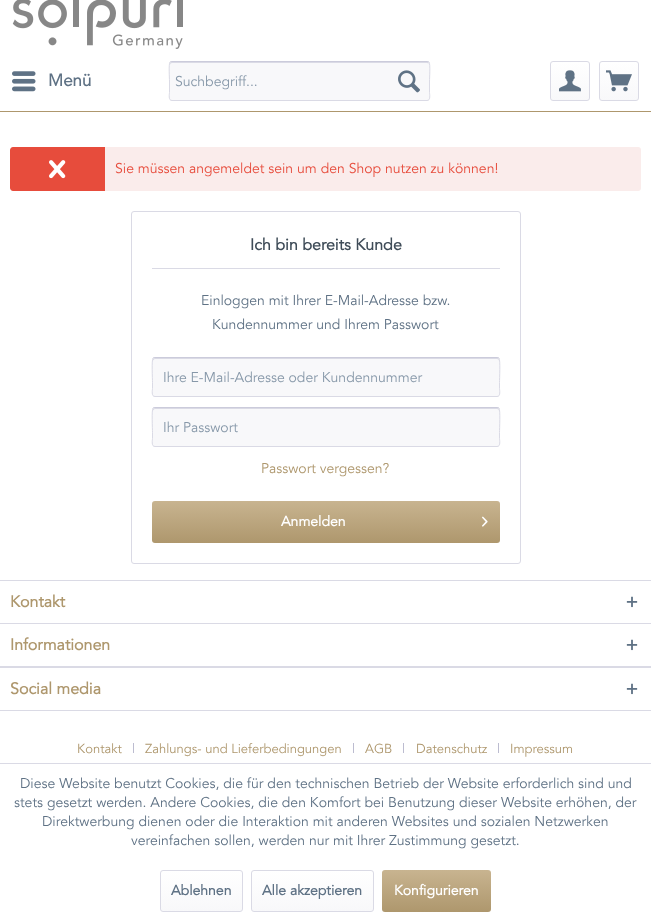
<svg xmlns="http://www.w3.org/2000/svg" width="651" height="922">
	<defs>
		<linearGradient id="g1" gradientUnits="userSpaceOnUse" x1="570" y1="62" x2="570" y2="100"><stop offset="0" stop-color="#FFFFFF" /><stop offset="1" stop-color="#F8F8FA" /></linearGradient>
		<linearGradient id="g2" gradientUnits="userSpaceOnUse" x1="619" y1="62" x2="619" y2="100"><stop offset="0" stop-color="#FFFFFF" /><stop offset="1" stop-color="#F8F8FA" /></linearGradient>
		<linearGradient id="g3" gradientUnits="userSpaceOnUse" x1="326" y1="501" x2="326" y2="543"><stop offset="0" stop-color="#C8B490" /><stop offset="1" stop-color="#AE976D" /></linearGradient>
		<linearGradient id="g4" gradientUnits="userSpaceOnUse" x1="202" y1="871" x2="202" y2="911"><stop offset="0" stop-color="#FFFFFF" /><stop offset="1" stop-color="#F8F8FA" /></linearGradient>
		<linearGradient id="g5" gradientUnits="userSpaceOnUse" x1="313" y1="871" x2="313" y2="911"><stop offset="0" stop-color="#FFFFFF" /><stop offset="1" stop-color="#F8F8FA" /></linearGradient>
		<linearGradient id="g6" gradientUnits="userSpaceOnUse" x1="437" y1="870" x2="437" y2="912"><stop offset="0" stop-color="#C8B490" /><stop offset="1" stop-color="#AE976D" /></linearGradient>
	</defs>
	<rect width="100%" height="100%" fill="#FFFFFF" />
	<rect x="0" y="111" width="651" height="1" fill="#AE976D" />
	<image x="12" y="0" width="171" height="49" href="assets/img1.png" />
	<image x="12" y="71" width="24" height="21" href="assets/img2.png" />
	<text x="48" y="86" font-family="Avenir" font-size="17" font-weight="700" fill="#5F7285">Menü</text>
	<rect x="169" y="61" width="261" height="40" rx="3" fill="#F8F8FA" />
	<path d="M172 63H427C428 63 429 64 429 65L428 62H172C170 62 170 64 170 65C170 64 171 63 172 63Z" fill="#DADAE5" />
	<path d="M170 62L172 61.5H427L429 62" fill="none" stroke="#CBCBDB" />
	<path d="M429 62C430.5 64 429.5 78 429.5 81V92.5C429.5 94 431 100.5 427 100.5H172C168 100.5 169.5 94 169.5 92.5V81C169.5 78 168.5 64 170 62" fill="none" stroke="#DADAE5" />
	<text x="175" y="86" font-family="Avenir" font-size="14" fill="#8798A9">Suchbegriff...</text>
	<image x="398" y="70" width="22" height="23" href="assets/img3.png" />
	<rect x="551" y="62" width="38" height="38" rx="2" fill="url(#g1)" />
	<rect x="550.5" y="61.5" width="39" height="39" rx="2.5" fill="none" stroke="#DADAE5" />
	<image x="559" y="70" width="22" height="22" href="assets/img4.png" />
	<rect x="600" y="62" width="38" height="38" rx="2" fill="url(#g2)" />
	<rect x="599.5" y="61.5" width="39" height="39" rx="2.5" fill="none" stroke="#DADAE5" />
	<image x="606" y="70" width="26" height="22" href="assets/img5.png" />
	<rect x="10" y="147" width="631" height="44" rx="3" fill="#FAECEB" />
	<path d="M13 147H105V191H13C11.5 191 10 189.5 10 188V150C10 148.5 11.5 147 13 147Z" fill="#E74C3C" />
	<image x="49" y="160" width="17" height="19" href="assets/img6.png" />
	<text x="115" y="173" font-family="Avenir" font-size="14" fill="#E74C3C">Sie müssen angemeldet sein um den Shop nutzen zu können!</text>
	<rect x="131.5" y="211.5" width="389" height="352" rx="2.5" fill="none" stroke="#DADAE5" />
	<rect x="152" y="268" width="348" height="1" fill="#DADAE5" />
	<text x="250" y="250" font-family="Avenir" font-size="16" font-weight="700" fill="#3F4C58">Ich bin bereits Kunde</text>
	<g font-family="Avenir" font-size="14" fill="#5F7285">
		<text x="201" y="305">Einloggen mit Ihrer E-Mail-Adresse bzw.</text>
		<text x="212" y="329">Kundennummer und Ihrem Passwort</text>
	</g>
	<rect x="152" y="357" width="348" height="40" rx="3" fill="#F8F8FA" />
	<path d="M155 359H497C498 359 499 360 499 361C499 360 499 358 497 358H155L153 359V361C153 360 154 359 155 359Z" fill="#DADAE5" />
	<path d="M153 358L155 357.5H497L499 358" fill="none" stroke="#CBCBDB" />
	<path d="M499 358C500.5 360 499.5 379 499.5 382.5V388.5C499.5 390 501 396.5 497 396.5H155C151 396.5 152.5 390 152.5 388.5V382.5C152.5 379 151.5 360 153 358" fill="none" stroke="#DADAE5" />
	<text x="163" y="382" font-family="Avenir" font-size="14" fill="#8798A9">Ihre E-Mail-Adresse oder Kundennummer</text>
	<rect x="152" y="407" width="348" height="40" rx="3" fill="#F8F8FA" />
	<path d="M155 409H497C498 409 499 410 499 411C499 410 499 408 497 408H155L153 409V411C153 410 154 409 155 409Z" fill="#DADAE5" />
	<path d="M153 408L155 407.5H497L499 408" fill="none" stroke="#CBCBDB" />
	<path d="M499 408C500.5 410 499.5 429 499.5 432.5V438.5C499.5 440 501 446.5 497 446.5H155C151 446.5 152.5 440 152.5 438.5V432.5C152.5 429 151.5 410 153 408" fill="none" stroke="#DADAE5" />
	<text x="163" y="432" font-family="Avenir" font-size="14" fill="#8798A9">Ihr Passwort</text>
	<text x="261" y="473" font-family="Avenir" font-size="14" fill="#AE976D">Passwort vergessen?</text>
	<rect x="152" y="501" width="348" height="42" rx="3" fill="url(#g3)" />
	<text x="281" y="526" font-family="Avenir" font-size="14" font-weight="700" fill="#FFFFFF">Anmelden</text>
	<image x="482" y="516" width="6" height="11" href="assets/img7.png" />
	<rect x="0" y="580" width="651" height="1" fill="#DADAE5" />
	<text x="10" y="607" font-family="Avenir" font-size="16" font-weight="700" fill="#AE976D">Kontakt</text>
	<image x="626" y="596" width="12" height="12" href="assets/img8.png" />
	<rect x="0" y="623" width="651" height="1" fill="#DADAE5" />
	<text x="10" y="650" font-family="Avenir" font-size="16" font-weight="700" fill="#AE976D">Informationen</text>
	<image x="626" y="639" width="12" height="12" href="assets/img8.png" />
	<rect x="0" y="666" width="651" height="2" fill="#DADAE5" />
	<rect x="0" y="710" width="651" height="1" fill="#DADAE5" />
	<text x="10" y="694" font-family="Avenir" font-size="16" font-weight="700" fill="#AE976D">Social media</text>
	<image x="626" y="683" width="12" height="12" href="assets/img8.png" />
	<text x="77" y="753" font-family="Avenir" font-size="13" fill="#AE976D">Kontakt</text>
	<rect x="133" y="743" width="1" height="10" fill="#BCBCD0" />
	<text x="145" y="753" font-family="Avenir" font-size="13" fill="#AE976D">Zahlungs- und Lieferbedingungen</text>
	<rect x="353" y="743" width="1" height="10" fill="#BCBCD0" />
	<text x="365" y="753" font-family="Avenir" font-size="13" fill="#AE976D">AGB</text>
	<rect x="403" y="743" width="1" height="10" fill="#BCBCD0" />
	<text x="416" y="753" font-family="Avenir" font-size="13" fill="#AE976D">Datenschutz</text>
	<rect x="498" y="743" width="1" height="10" fill="#BCBCD0" />
	<text x="510" y="753" font-family="Avenir" font-size="13" fill="#AE976D">Impressum</text>
	<rect x="0" y="763" width="651" height="1" fill="#DADAE5" />
	<g font-family="Avenir" font-size="14" fill="#5F7285">
		<text x="20" y="788">Diese Website benutzt Cookies, die für den technischen Betrieb der Website erforderlich sind und</text>
		<text x="14" y="807">stets gesetzt werden. Andere Cookies, die den Komfort bei Benutzung dieser Website erhöhen, der</text>
		<text x="42" y="826">Direktwerbung dienen oder die Interaktion mit anderen Websites und sozialen Netzwerken</text>
		<text x="131" y="845">vereinfachen sollen, werden nur mit Ihrer Zustimmung gesetzt.</text>
	</g>
	<rect x="161" y="871" width="81" height="40" rx="2" fill="url(#g4)" />
	<rect x="160.5" y="870.5" width="82" height="41" rx="2.5" fill="none" stroke="#DADAE5" />
	<text x="171" y="895" font-family="Avenir" font-size="14" font-weight="700" fill="#5F7285">Ablehnen</text>
	<rect x="252" y="871" width="121" height="40" rx="2" fill="url(#g5)" />
	<rect x="251.5" y="870.5" width="122" height="41" rx="2.5" fill="none" stroke="#DADAE5" />
	<text x="262" y="895" font-family="Avenir" font-size="14" font-weight="700" fill="#5F7285">Alle akzeptieren</text>
	<rect x="382" y="870" width="109" height="42" rx="3" fill="url(#g6)" />
	<text x="394" y="895" font-family="Avenir" font-size="14" font-weight="700" fill="#FFFFFF">Konfigurieren</text>
</svg>
